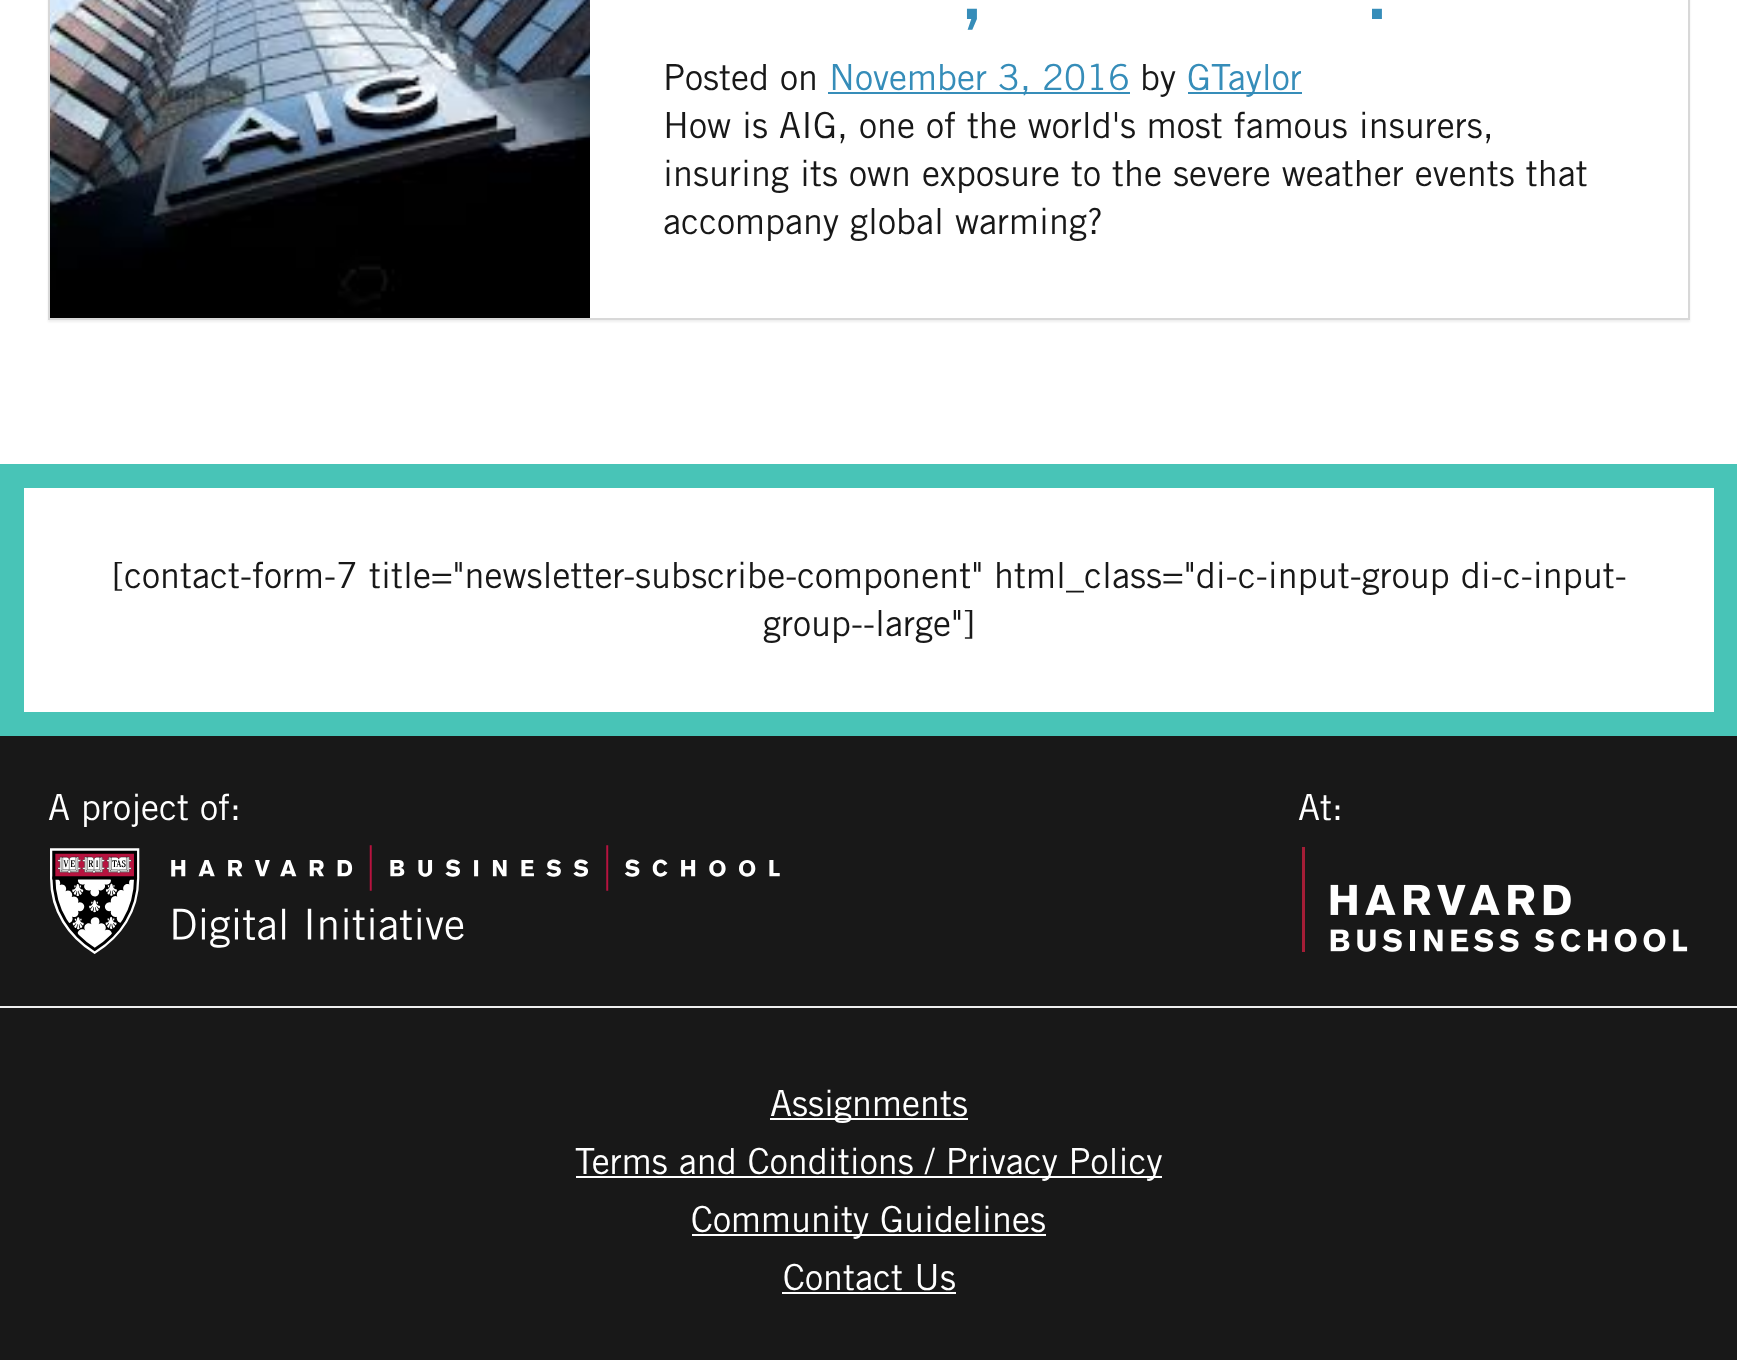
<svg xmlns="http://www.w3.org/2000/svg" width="1737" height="1360">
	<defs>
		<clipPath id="clip1"><path d="M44 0H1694V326H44ZM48-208H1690V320H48Z" clip-rule="evenodd" /></clipPath>
	</defs>
	<rect width="100%" height="100%" fill="#181818" />
	<rect x="0" y="0" width="1737" height="464" fill="#FFFFFF" />
	<g clip-path="url(#clip1)">
		<rect x="48" y="-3" width="1642" height="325" fill="#EEEEEE" filter="blur(1px)" />
	</g>
	<rect x="49" y="-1" width="1640" height="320" fill="none" stroke="#D8D8D8" stroke-width="2" />
	<image x="50" y="0" width="540" height="318" href="assets/img1.png" />
	<g font-family="Trade Gothic" font-size="72" font-weight="700" fill="#368DB9">
		<text x="961" y="19">,</text>
		<text x="1366" y="19">.</text>
	</g>
	<text x="663" y="90" font-family="Trade Gothic" font-size="36" fill="#181818">Posted on</text>
	<rect x="828" y="92" width="302" height="2" fill="#368DB9" />
	<text x="829" y="90" font-family="Trade Gothic" font-size="36" fill="#368DB9">November 3, 2016</text>
	<text x="1140" y="90" font-family="Trade Gothic" font-size="36" fill="#181818">by</text>
	<rect x="1188" y="92" width="114" height="2" fill="#368DB9" />
	<text x="1187" y="90" font-family="Trade Gothic" font-size="36" fill="#368DB9">GTaylor</text>
	<g font-family="Trade Gothic" font-size="36" fill="#181818">
		<text x="663" y="138">How is AIG, one of the world's most famous insurers,</text>
		<text x="663" y="186">insuring its own exposure to the severe weather events that</text>
		<text x="663" y="234">accompany global warming?</text>
	</g>
	<rect x="12" y="476" width="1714" height="248" fill="#FFFFFF" stroke="#48C4B7" stroke-width="24" />
	<g font-family="Trade Gothic" font-size="36" fill="#181818">
		<text x="112" y="588">[contact-form-7 title="newsletter-subscribe-component" html_class="di-c-input-group di-c-input-</text>
		<text x="763" y="636">group--large"]</text>
	</g>
	<rect x="0" y="1006" width="1737" height="2" fill="#EEEEEE" />
	<text x="48" y="820" font-family="Trade Gothic" font-size="36" fill="#FFFFFF">A project of:</text>
	<image x="50" y="845" width="730" height="109" href="assets/img2.png" />
	<text x="1298" y="820" font-family="Trade Gothic" font-size="36" fill="#FFFFFF">At:</text>
	<image x="1302" y="847" width="386" height="105" href="assets/img3.png" />
	<rect x="770" y="1118" width="198" height="2" fill="#FFFFFF" />
	<text x="770" y="1116" font-family="Trade Gothic" font-size="36" fill="#FFFFFF">Assignments</text>
	<rect x="576" y="1176" width="586" height="2" fill="#FFFFFF" />
	<text x="575" y="1174" font-family="Trade Gothic" font-size="36" fill="#FFFFFF">Terms and Conditions / Privacy Policy</text>
	<rect x="692" y="1234" width="354" height="2" fill="#FFFFFF" />
	<g font-family="Trade Gothic" font-size="36" fill="#FFFFFF">
		<text x="691" y="1232">Community Guidelines</text>
		<text x="783" y="1290">Contact Us</text>
	</g>
	<rect x="782" y="1292" width="174" height="2" fill="#FFFFFF" />
</svg>
